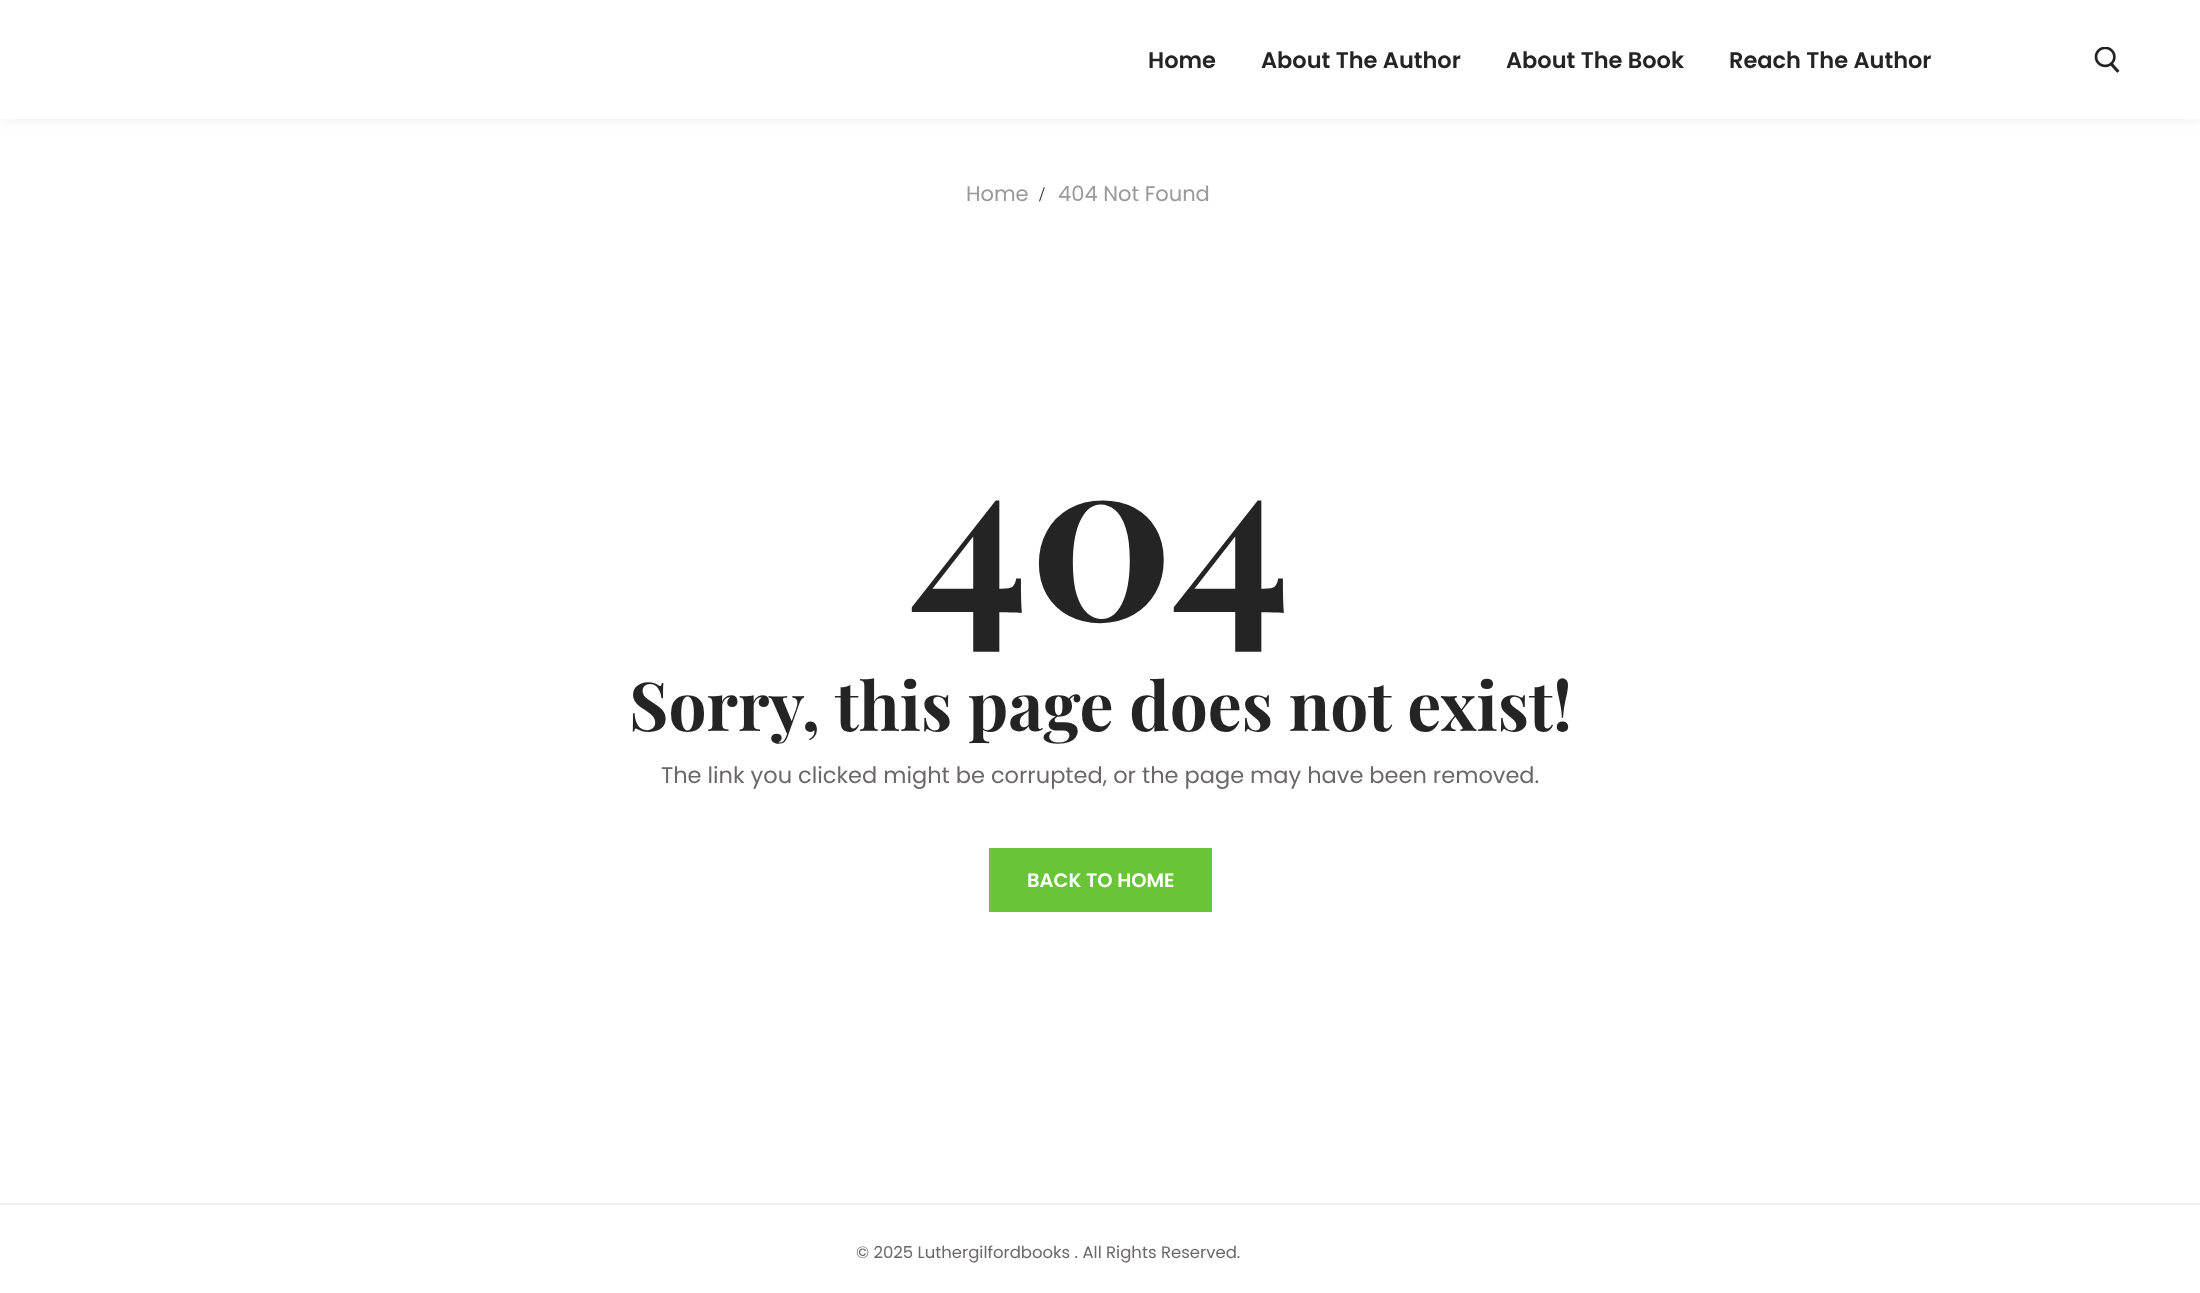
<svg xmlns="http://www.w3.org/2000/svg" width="2200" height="1293">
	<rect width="100%" height="100%" fill="#FFFFFF" />
	<rect x="0" y="0" width="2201" height="119" fill="#000000" fill-opacity="0.07" filter="blur(7.5px)" />
	<rect x="0" y="0" width="2200" height="119" fill="#FFFFFF" />
	<g font-family="Poppins" font-size="22.5" font-weight="600" fill="#242424">
		<text x="1148" y="68">Home</text>
		<text x="1261" y="68">About The Author</text>
		<text x="1506" y="68">About The Book</text>
		<text x="1729" y="68">Reach The Author</text>
	</g>
	<image x="2094" y="47" width="26" height="26" href="assets/img1.png" />
	<text x="966" y="201" font-family="Poppins" font-size="21" fill="#999999">Home</text>
	<text x="1039" y="201" font-family="Liberation Serif" font-size="21" fill="#242424">/</text>
	<text x="1058" y="201" font-family="Poppins" font-size="21" fill="#999999">404 Not Found</text>
	<text x="910" y="620" font-family="Playfair Display" font-size="225" font-weight="700" fill="#242424">404</text>
	<text x="629" y="731" font-family="Playfair Display" font-size="67.5" font-weight="700" fill="#242424">Sorry, this page does not exist!</text>
	<text x="661" y="783" font-family="Poppins" font-size="22.5" fill="#6B6768">The link you clicked might be corrupted, or the page may have been removed.</text>
	<rect x="989" y="848" width="223" height="64" fill="#69C438" />
	<text x="1027" y="887" font-family="Poppins" font-size="19.5" font-weight="600" fill="#FFFFFF">BACK TO HOME</text>
	<rect x="0" y="1203" width="2200" height="2" fill="#F0F0F0" />
	<text x="856" y="1258" font-family="Poppins" font-size="16.5" fill="#6B6768">© 2025 Luthergilfordbooks . All Rights Reserved.</text>
</svg>
